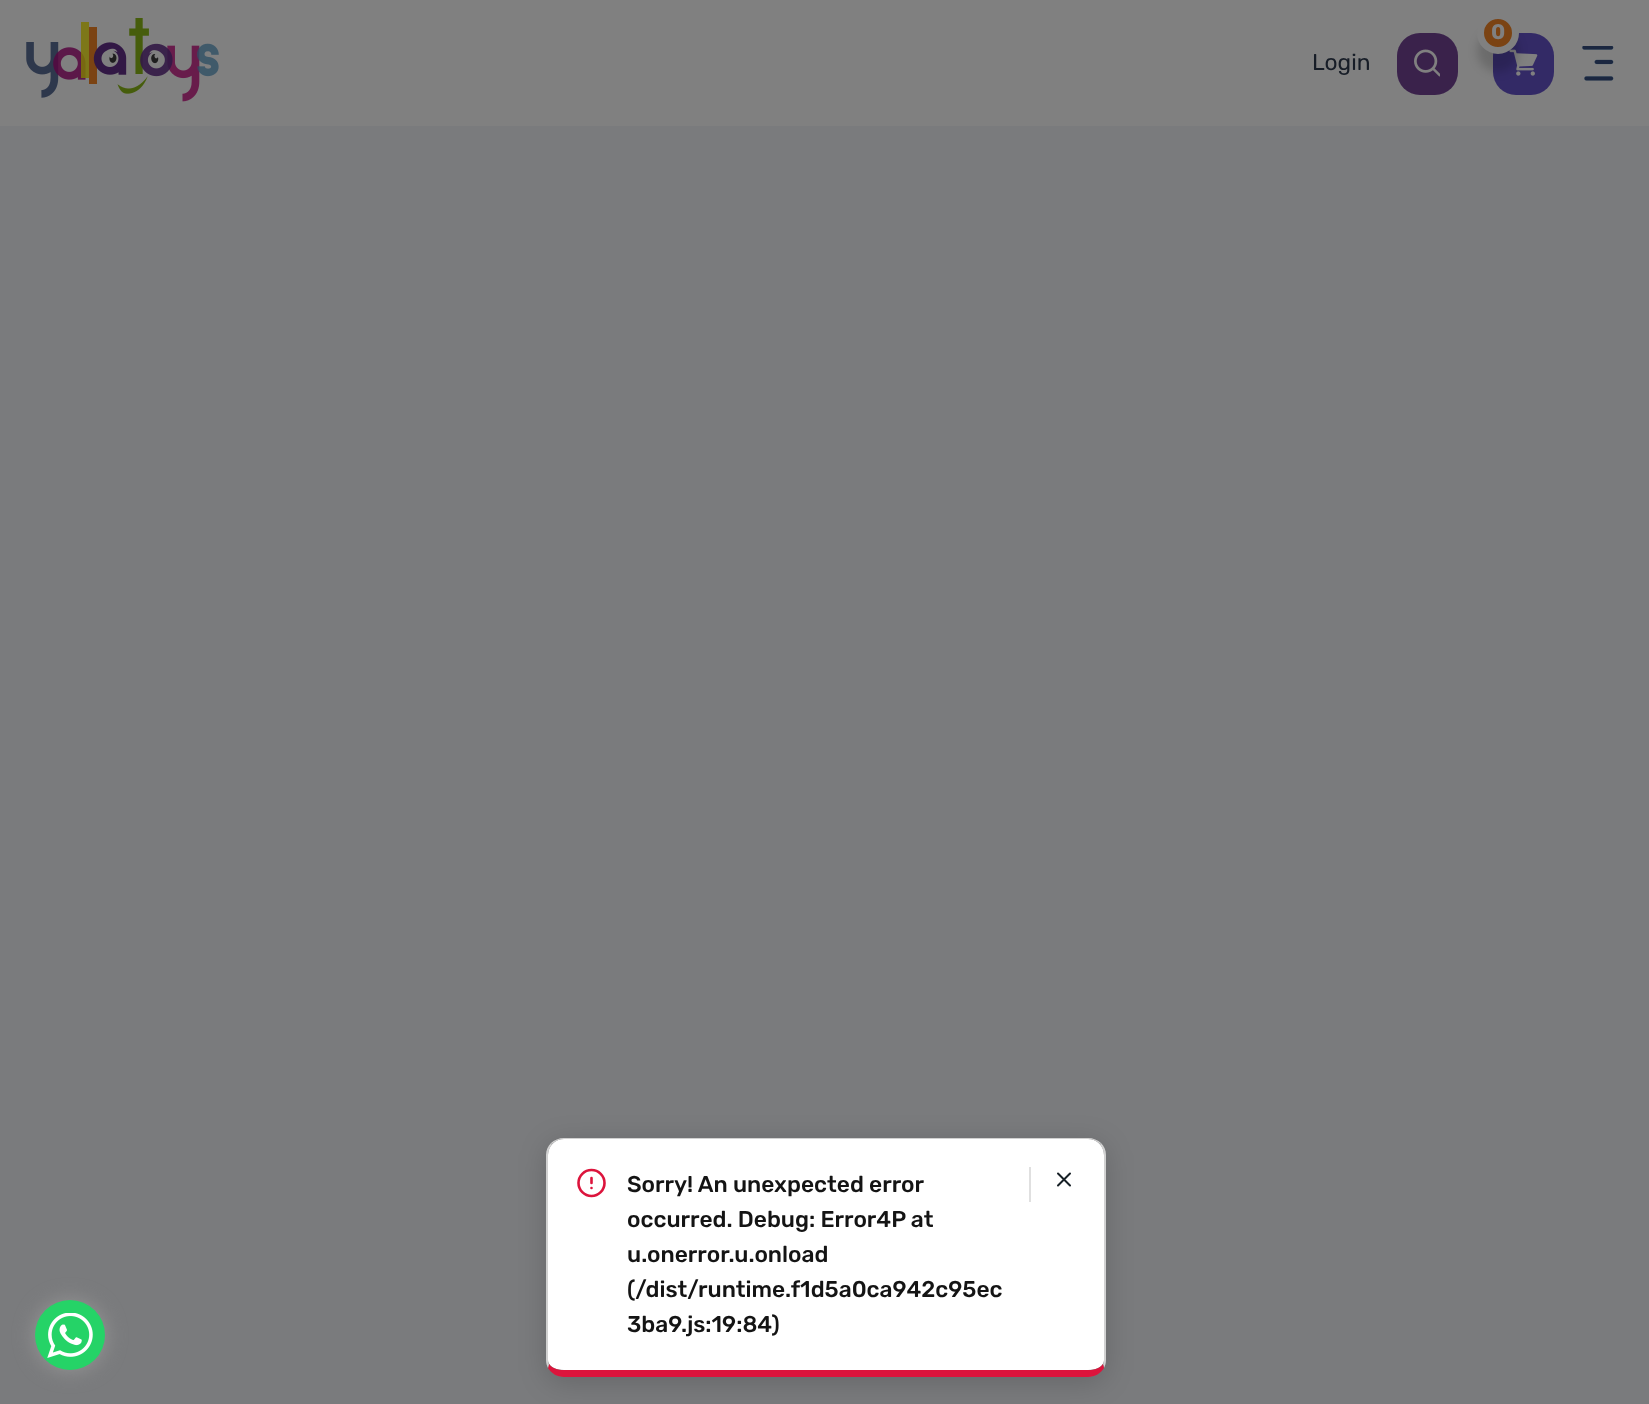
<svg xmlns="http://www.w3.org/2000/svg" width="1649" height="1404">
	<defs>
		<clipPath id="clip1"><path d="M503 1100H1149V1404H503ZM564 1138H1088C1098 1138 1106 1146 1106 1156V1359C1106 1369 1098 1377 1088 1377H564C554 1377 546 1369 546 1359V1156C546 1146 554 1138 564 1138Z" clip-rule="evenodd" /></clipPath>
	</defs>
	<rect width="100%" height="100%" fill="#7A7B7D" />
	<rect x="33" y="1299" width="74" height="73" rx="36.5" fill="#9B9B9B" fill-opacity="0.71" filter="blur(9.5px)" />
	<circle cx="70" cy="1335" r="35" fill="#25D367" />
	<image x="47" y="1313" width="46" height="45" href="assets/img1.png" />
	<rect x="0" y="0" width="1649" height="126" fill="#808080" />
	<image x="26" y="18" width="193" height="84" href="assets/img2.png" />
	<text x="1312" y="70" font-family="Rubik" font-size="22.75" fill="#171D27">Login</text>
	<rect x="1397" y="33" width="61" height="62" rx="23" fill="#3A224B" />
	<image x="1414" y="49" width="26" height="28" href="assets/img3.png" />
	<rect x="1493" y="33" width="61" height="62" rx="23" fill="#332A66" />
	<image x="1509" y="49" width="29" height="27" href="assets/img4.png" />
	<rect x="1477" y="30" width="42" height="42" rx="21" fill="#000000" fill-opacity="0.16" filter="blur(5px)" />
	<circle cx="1498" cy="33" r="17.5" fill="#7B4313" stroke="#808080" stroke-width="7" />
	<text x="1491" y="39" font-family="Rubik" font-size="21" font-weight="700" fill="#808080">0</text>
	<image x="1582" y="46" width="32" height="35" href="assets/img5.png" />
	<g clip-path="url(#clip1)">
		<rect x="546" y="1143" width="560" height="240" rx="18" fill="#000000" fill-opacity="0.16" filter="blur(14px)" />
	</g>
	<path d="M564 1139H1088C1097 1139 1104 1146 1104 1155V1360C1104 1366 1097 1370 1088 1370H564C555 1370 548 1366 548 1360V1155C548 1146 555 1139 564 1139Z" fill="#FFFFFF" />
	<path d="M564 1138C559 1138 554 1140 551 1143L552 1144C555 1141 559 1139 564 1139H1088C1093 1139 1097 1141 1100 1144L1101 1143C1098 1140 1093 1138 1088 1138Z" fill="#D1D1D1" />
	<path d="M1101 1143C1104 1146 1106 1150 1106 1155V1360C1106 1363 1105 1366 1104 1368L1103 1364C1104 1363 1104 1362 1104 1360V1155C1104 1151 1102 1147 1100 1144Z" fill="#D1D1D1" />
	<path d="M1104 1368C1101 1373 1095 1377 1088 1377H564C557 1377 551 1373 548 1368L549 1364C552 1368 557 1370 564 1370H1088C1095 1370 1100 1368 1103 1364Z" fill="#DC143C" />
	<path d="M546 1155V1360C546 1363 547 1366 548 1368L549 1364C548 1363 548 1362 548 1360V1155C548 1151 550 1147 552 1144L551 1143C548 1146 546 1150 546 1155Z" fill="#D1D1D1" />
	<circle cx="591.5" cy="1183" r="13" fill="none" stroke="#DC143C" stroke-width="2.6" />
	<path d="M591.5 1178V1183M591.5 1188H591.5" fill="none" stroke="#DC143C" stroke-width="2.6" stroke-linecap="round" stroke-linejoin="round" />
	<g font-family="Rubik" font-size="22.75" font-weight="500" fill="#141414">
		<text x="627" y="1192">Sorry! An unexpected error</text>
		<text x="627" y="1227">occurred. Debug: Error4P at</text>
		<text x="627" y="1262">u.onerror.u.onload</text>
		<text x="627" y="1297">(/dist/runtime.f1d5a0ca942c95ec</text>
		<text x="627" y="1332">3ba9.js:19:84)</text>
	</g>
	<rect x="1029" y="1167" width="2" height="35" fill="#E0E0E0" />
	<path d="M1070 1173.5L1058 1185.5M1058 1173.5L1070 1185.5" fill="none" stroke="#172026" stroke-width="2" stroke-linecap="round" stroke-linejoin="round" />
</svg>
